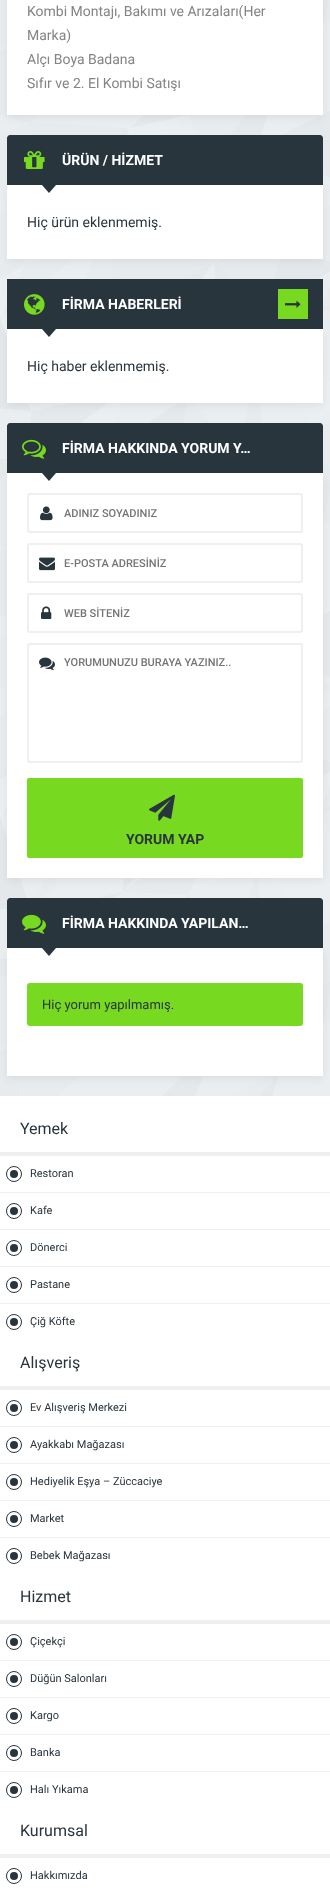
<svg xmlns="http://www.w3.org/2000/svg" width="330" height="1900">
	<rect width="100%" height="100%" fill="#FFFFFF" />
	<image x="0" y="0" width="330" height="1096" href="assets/img1.png" />
	<rect x="7" y="-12" width="316" height="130" fill="#000000" fill-opacity="0.06" filter="blur(4px)" />
	<rect x="7" y="0" width="316" height="115" fill="#FFFFFF" />
	<g font-family="Roboto" font-size="14" fill="#848484">
		<text x="27" y="16">Kombi Montajı, Bakımı ve Arızaları(Her</text>
		<text x="27" y="40">Marka)</text>
		<text x="27" y="64">Alçı Boya Badana</text>
		<text x="27" y="88">Sıfır ve 2. El Kombi Satışı</text>
	</g>
	<rect x="7" y="188" width="316" height="74" fill="#000000" fill-opacity="0.06" filter="blur(4px)" />
	<path d="M10 135H320C321.5 135 323 136.5 323 138V185H7V138C7 136.5 8.5 135 10 135Z" fill="#29353D" />
	<image x="24" y="151" width="21" height="18" href="assets/img2.png" />
	<text x="62" y="165" font-family="Roboto" font-size="14" font-weight="700" fill="#FFFFFF">ÜRÜN / HİZMET</text>
	<rect x="7" y="185" width="316" height="74" fill="#FFFFFF" />
	<path d="M42 185H56L49 193Z" fill="#29353D" />
	<text x="27" y="227" font-family="Roboto" font-size="14" fill="#29353D">Hiç ürün eklenmemiş.</text>
	<rect x="7" y="332" width="316" height="74" fill="#000000" fill-opacity="0.06" filter="blur(4px)" />
	<rect x="7" y="279" width="316" height="50" fill="#29353D" />
	<image x="24" y="294" width="21" height="21" href="assets/img3.png" />
	<text x="62" y="309" font-family="Roboto" font-size="14" font-weight="700" fill="#FFFFFF">FİRMA HABERLERİ</text>
	<rect x="278" y="289" width="30" height="30" fill="#77D920" />
	<image x="285" y="300" width="16" height="8" href="assets/img4.png" />
	<rect x="7" y="329" width="316" height="74" fill="#FFFFFF" />
	<path d="M42 329H56L49 337Z" fill="#29353D" />
	<text x="27" y="371" font-family="Roboto" font-size="14" fill="#29353D">Hiç haber eklenmemiş.</text>
	<rect x="7" y="476" width="316" height="405" fill="#000000" fill-opacity="0.06" filter="blur(4px)" />
	<path d="M10 423H320C321.5 423 323 424.5 323 426V473H7V426C7 424.5 8.5 423 10 423Z" fill="#29353D" />
	<image x="22" y="439" width="24" height="20" href="assets/img5.png" />
	<text x="62" y="453" font-family="Roboto" font-size="14" font-weight="700" fill="#FFFFFF">FİRMA HAKKINDA YORUM Y…</text>
	<rect x="7" y="473" width="316" height="405" fill="#FFFFFF" />
	<path d="M42 473H56L49 481Z" fill="#29353D" />
	<rect x="28" y="494" width="274" height="38" rx="2" fill="none" stroke="#EFEFEF" stroke-width="2" />
	<image x="40" y="506" width="13" height="15" href="assets/img6.png" />
	<text x="64" y="517" font-family="Roboto" font-size="11" font-weight="500" fill="#757575">ADINIZ SOYADINIZ</text>
	<rect x="28" y="544" width="274" height="38" rx="2" fill="none" stroke="#EFEFEF" stroke-width="2" />
	<image x="39" y="557" width="16" height="14" href="assets/img7.png" />
	<text x="64" y="567" font-family="Roboto" font-size="11" font-weight="500" fill="#757575">E-POSTA ADRESİNİZ</text>
	<rect x="28" y="594" width="274" height="38" rx="2" fill="none" stroke="#EFEFEF" stroke-width="2" />
	<image x="41" y="606" width="11" height="13" href="assets/img8.png" />
	<text x="64" y="617" font-family="Roboto" font-size="11" font-weight="500" fill="#757575">WEB SİTENİZ</text>
	<rect x="28" y="644" width="274" height="118" rx="2" fill="none" stroke="#EFEFEF" stroke-width="2" />
	<image x="39" y="657" width="16" height="14" href="assets/img9.png" />
	<text x="64" y="666" font-family="Roboto" font-size="11" font-weight="500" fill="#757575">YORUMUNUZU BURAYA YAZINIZ..</text>
	<rect x="27" y="778" width="276" height="80" rx="2" fill="#77D920" />
	<image x="149" y="794" width="26" height="27" href="assets/img10.png" />
	<text x="126" y="844" font-family="Roboto" font-size="14" font-weight="700" fill="#29353D">YORUM YAP</text>
	<rect x="7" y="951" width="316" height="128" fill="#000000" fill-opacity="0.06" filter="blur(4px)" />
	<path d="M10 898H320C321.5 898 323 899.5 323 901V948H7V901C7 899.5 8.5 898 10 898Z" fill="#29353D" />
	<image x="22" y="914" width="24" height="20" href="assets/img11.png" />
	<text x="62" y="928" font-family="Roboto" font-size="14" font-weight="700" fill="#FFFFFF">FİRMA HAKKINDA YAPILAN…</text>
	<rect x="7" y="948" width="316" height="128" fill="#FFFFFF" />
	<path d="M42 948H56L49 956Z" fill="#29353D" />
	<rect x="27" y="983" width="276" height="43" rx="3" fill="#77D920" />
	<text x="42" y="1009" font-family="Roboto" font-size="13" fill="#29353D">Hiç yorum yapılmamış.</text>
	<rect x="0" y="1152" width="330" height="4" fill="#EFEFEF" />
	<text x="20" y="1134" font-family="Roboto" font-size="16" fill="#29353D">Yemek</text>
	<circle cx="14" cy="1174" r="4" fill="#29353D" />
	<circle cx="14" cy="1174" r="7.5" fill="none" stroke="#29353D" />
	<rect x="0" y="1192" width="330" height="1" fill="#EFEFEF" />
	<text x="30" y="1177" font-family="Roboto" font-size="11" fill="#29353D">Restoran</text>
	<circle cx="14" cy="1211" r="4" fill="#29353D" />
	<circle cx="14" cy="1211" r="7.5" fill="none" stroke="#29353D" />
	<rect x="0" y="1229" width="330" height="1" fill="#EFEFEF" />
	<text x="30" y="1214" font-family="Roboto" font-size="11" fill="#29353D">Kafe</text>
	<circle cx="14" cy="1248" r="4" fill="#29353D" />
	<circle cx="14" cy="1248" r="7.5" fill="none" stroke="#29353D" />
	<rect x="0" y="1266" width="330" height="1" fill="#EFEFEF" />
	<text x="30" y="1251" font-family="Roboto" font-size="11" fill="#29353D">Dönerci</text>
	<circle cx="14" cy="1285" r="4" fill="#29353D" />
	<circle cx="14" cy="1285" r="7.5" fill="none" stroke="#29353D" />
	<rect x="0" y="1303" width="330" height="1" fill="#EFEFEF" />
	<text x="30" y="1288" font-family="Roboto" font-size="11" fill="#29353D">Pastane</text>
	<circle cx="14" cy="1322" r="4" fill="#29353D" />
	<circle cx="14" cy="1322" r="7.5" fill="none" stroke="#29353D" />
	<text x="30" y="1325" font-family="Roboto" font-size="11" fill="#29353D">Çiğ Köfte</text>
	<rect x="0" y="1386" width="330" height="4" fill="#EFEFEF" />
	<text x="20" y="1368" font-family="Roboto" font-size="16" fill="#29353D">Alışveriş</text>
	<circle cx="14" cy="1408" r="4" fill="#29353D" />
	<circle cx="14" cy="1408" r="7.5" fill="none" stroke="#29353D" />
	<rect x="0" y="1426" width="330" height="1" fill="#EFEFEF" />
	<text x="30" y="1411" font-family="Roboto" font-size="11" fill="#29353D">Ev Alışveriş Merkezi</text>
	<circle cx="14" cy="1445" r="4" fill="#29353D" />
	<circle cx="14" cy="1445" r="7.5" fill="none" stroke="#29353D" />
	<rect x="0" y="1463" width="330" height="1" fill="#EFEFEF" />
	<text x="30" y="1448" font-family="Roboto" font-size="11" fill="#29353D">Ayakkabı Mağazası</text>
	<circle cx="14" cy="1482" r="4" fill="#29353D" />
	<circle cx="14" cy="1482" r="7.5" fill="none" stroke="#29353D" />
	<rect x="0" y="1500" width="330" height="1" fill="#EFEFEF" />
	<text x="30" y="1485" font-family="Roboto" font-size="11" fill="#29353D">Hediyelik Eşya – Züccaciye</text>
	<circle cx="14" cy="1519" r="4" fill="#29353D" />
	<circle cx="14" cy="1519" r="7.5" fill="none" stroke="#29353D" />
	<rect x="0" y="1537" width="330" height="1" fill="#EFEFEF" />
	<text x="30" y="1522" font-family="Roboto" font-size="11" fill="#29353D">Market</text>
	<circle cx="14" cy="1556" r="4" fill="#29353D" />
	<circle cx="14" cy="1556" r="7.5" fill="none" stroke="#29353D" />
	<text x="30" y="1559" font-family="Roboto" font-size="11" fill="#29353D">Bebek Mağazası</text>
	<rect x="0" y="1620" width="330" height="4" fill="#EFEFEF" />
	<text x="20" y="1602" font-family="Roboto" font-size="16" fill="#29353D">Hizmet</text>
	<circle cx="14" cy="1642" r="4" fill="#29353D" />
	<circle cx="14" cy="1642" r="7.5" fill="none" stroke="#29353D" />
	<rect x="0" y="1660" width="330" height="1" fill="#EFEFEF" />
	<text x="30" y="1645" font-family="Roboto" font-size="11" fill="#29353D">Çiçekçi</text>
	<circle cx="14" cy="1679" r="4" fill="#29353D" />
	<circle cx="14" cy="1679" r="7.5" fill="none" stroke="#29353D" />
	<rect x="0" y="1697" width="330" height="1" fill="#EFEFEF" />
	<text x="30" y="1682" font-family="Roboto" font-size="11" fill="#29353D">Düğün Salonları</text>
	<circle cx="14" cy="1716" r="4" fill="#29353D" />
	<circle cx="14" cy="1716" r="7.5" fill="none" stroke="#29353D" />
	<rect x="0" y="1734" width="330" height="1" fill="#EFEFEF" />
	<text x="30" y="1719" font-family="Roboto" font-size="11" fill="#29353D">Kargo</text>
	<circle cx="14" cy="1753" r="4" fill="#29353D" />
	<circle cx="14" cy="1753" r="7.5" fill="none" stroke="#29353D" />
	<rect x="0" y="1771" width="330" height="1" fill="#EFEFEF" />
	<text x="30" y="1756" font-family="Roboto" font-size="11" fill="#29353D">Banka</text>
	<circle cx="14" cy="1790" r="4" fill="#29353D" />
	<circle cx="14" cy="1790" r="7.5" fill="none" stroke="#29353D" />
	<text x="30" y="1793" font-family="Roboto" font-size="11" fill="#29353D">Halı Yıkama</text>
	<rect x="0" y="1854" width="330" height="4" fill="#EFEFEF" />
	<text x="20" y="1836" font-family="Roboto" font-size="16" fill="#29353D">Kurumsal</text>
	<circle cx="14" cy="1876" r="4" fill="#29353D" />
	<circle cx="14" cy="1876" r="7.5" fill="none" stroke="#29353D" />
	<text x="30" y="1879" font-family="Roboto" font-size="11" fill="#29353D">Hakkımızda</text>
</svg>
